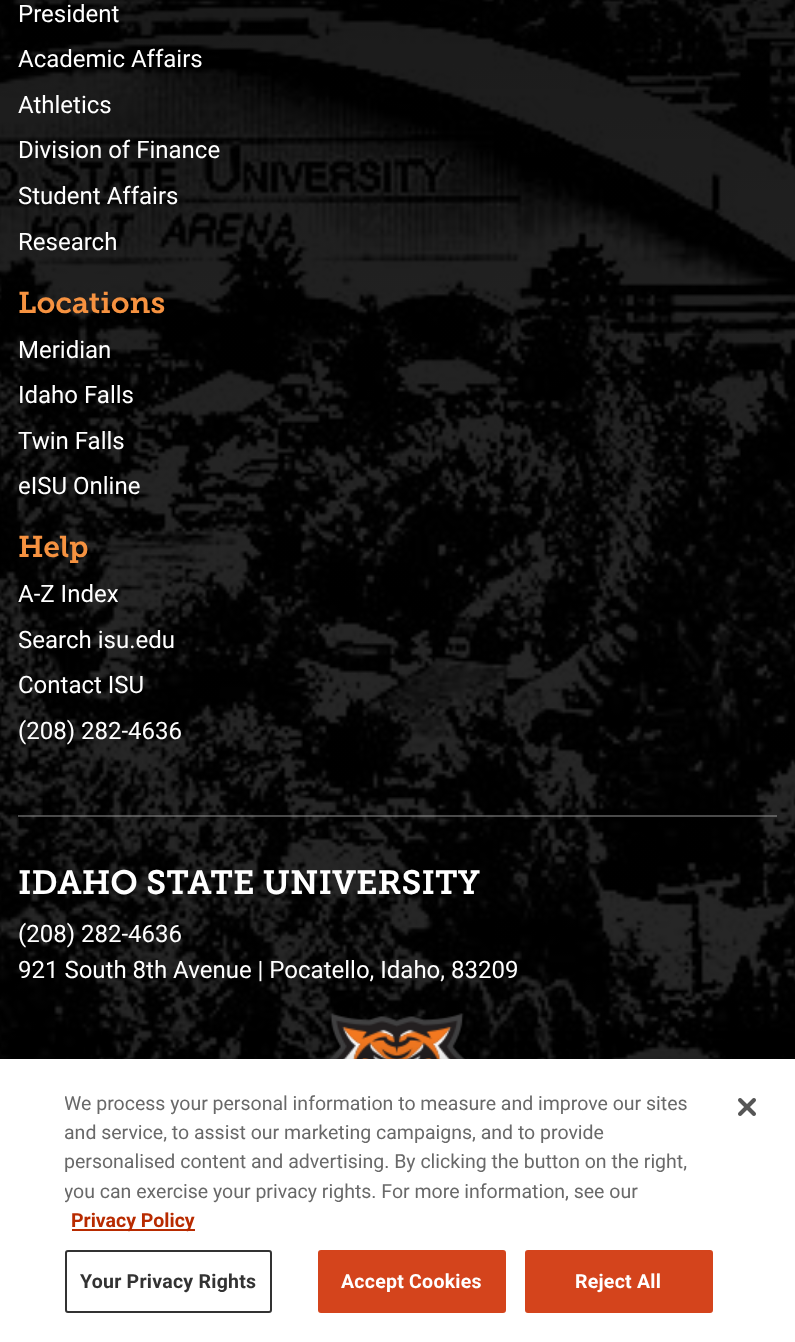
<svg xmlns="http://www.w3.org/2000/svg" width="795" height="1342">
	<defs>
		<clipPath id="clip1"><rect x="65" y="1089" width="631" height="146" /></clipPath>
	</defs>
	<rect width="100%" height="100%" fill="#FFFFFF" />
	<image x="0" y="0" width="795" height="1059" href="assets/img1.png" />
	<g font-family="Roboto" font-size="24" fill="#FFFFFF">
		<text x="18" y="22">President</text>
		<text x="18" y="67">Academic Affairs</text>
		<text x="18" y="113">Athletics</text>
		<text x="18" y="158">Division of Finance</text>
		<text x="18" y="204">Student Affairs</text>
		<text x="18" y="250">Research</text>
	</g>
	<text x="18" y="313" font-family="Museo Slab" font-size="30" font-weight="600" fill="#F69240">Locations</text>
	<g font-family="Roboto" font-size="24" fill="#FFFFFF">
		<text x="18" y="358">Meridian</text>
		<text x="18" y="403">Idaho Falls</text>
		<text x="18" y="449">Twin Falls</text>
		<text x="18" y="494">eISU Online</text>
	</g>
	<text x="18" y="557" font-family="Museo Slab" font-size="30" font-weight="600" fill="#F69240">Help</text>
	<g font-family="Roboto" font-size="24" fill="#FFFFFF">
		<text x="18" y="602">A-Z Index</text>
		<text x="18" y="648">Search isu.edu</text>
		<text x="18" y="693">Contact ISU</text>
		<text x="18" y="739">(208) 282-4636</text>
	</g>
	<rect x="18" y="815" width="759" height="2" fill="#FFFFFF" fill-opacity="0.25" />
	<rect x="18" y="815" width="759" height="2" fill="#666666" fill-opacity="0.25" />
	<text x="18" y="894" font-family="Museo Slab" font-size="33.6" font-weight="600" fill="#FFFFFF">IDAHO STATE UNIVERSITY</text>
	<g font-family="Roboto" font-size="24" fill="#FFFFFF">
		<text x="18" y="942">(208) 282-4636</text>
		<text x="18" y="978">921 South 8th Avenue | Pocatello, Idaho, 83209</text>
	</g>
	<image x="328" y="1013" width="138" height="46" href="assets/img2.png" />
	<rect x="0" y="1059" width="795" height="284" fill="#000000" fill-opacity="0.2" filter="blur(13.5px)" />
	<rect x="0" y="1059" width="795" height="283" fill="#FFFFFF" />
	<g clip-path="url(#clip1)">
		<text x="64" y="1110" font-family="Roboto" font-size="19.5" fill="#696969">We process your personal information to measure and improve our sites</text>
	</g>
	<g font-family="Roboto" font-size="19.5" fill="#696969">
		<text x="64" y="1139">and service, to assist our marketing campaigns, and to provide</text>
		<text x="64" y="1168">personalised content and advertising. By clicking the button on the right,</text>
	</g>
	<g clip-path="url(#clip1)">
		<text x="64" y="1198" font-family="Roboto" font-size="19.5" fill="#696969">you can exercise your privacy rights. For more information, see our</text>
	</g>
	<rect x="72" y="1229" width="123" height="2" fill="#B82B00" />
	<text x="71" y="1227" font-family="Roboto" font-size="19.5" font-weight="700" fill="#B82B00">Privacy Policy</text>
	<rect x="66" y="1251" width="205" height="61" rx="2" fill="none" stroke="#333333" stroke-width="2" />
	<text x="80" y="1288" font-family="Roboto" font-size="19.5" font-weight="700" letter-spacing="0.25" fill="#333333">Your Privacy Rights</text>
	<rect x="319" y="1251" width="186" height="61" rx="2" fill="#D4441C" stroke="#D4441C" stroke-width="2" />
	<text x="341" y="1288" font-family="Roboto" font-size="19.5" font-weight="700" letter-spacing="0.25" fill="#FFFFFF">Accept Cookies</text>
	<rect x="526" y="1251" width="186" height="61" rx="2" fill="#D4441C" stroke="#D4441C" stroke-width="2" />
	<text x="575" y="1288" font-family="Roboto" font-size="19.5" font-weight="700" letter-spacing="0.25" fill="#FFFFFF">Reject All</text>
	<image x="738" y="1098" width="18" height="18" href="assets/img3.png" />
</svg>
